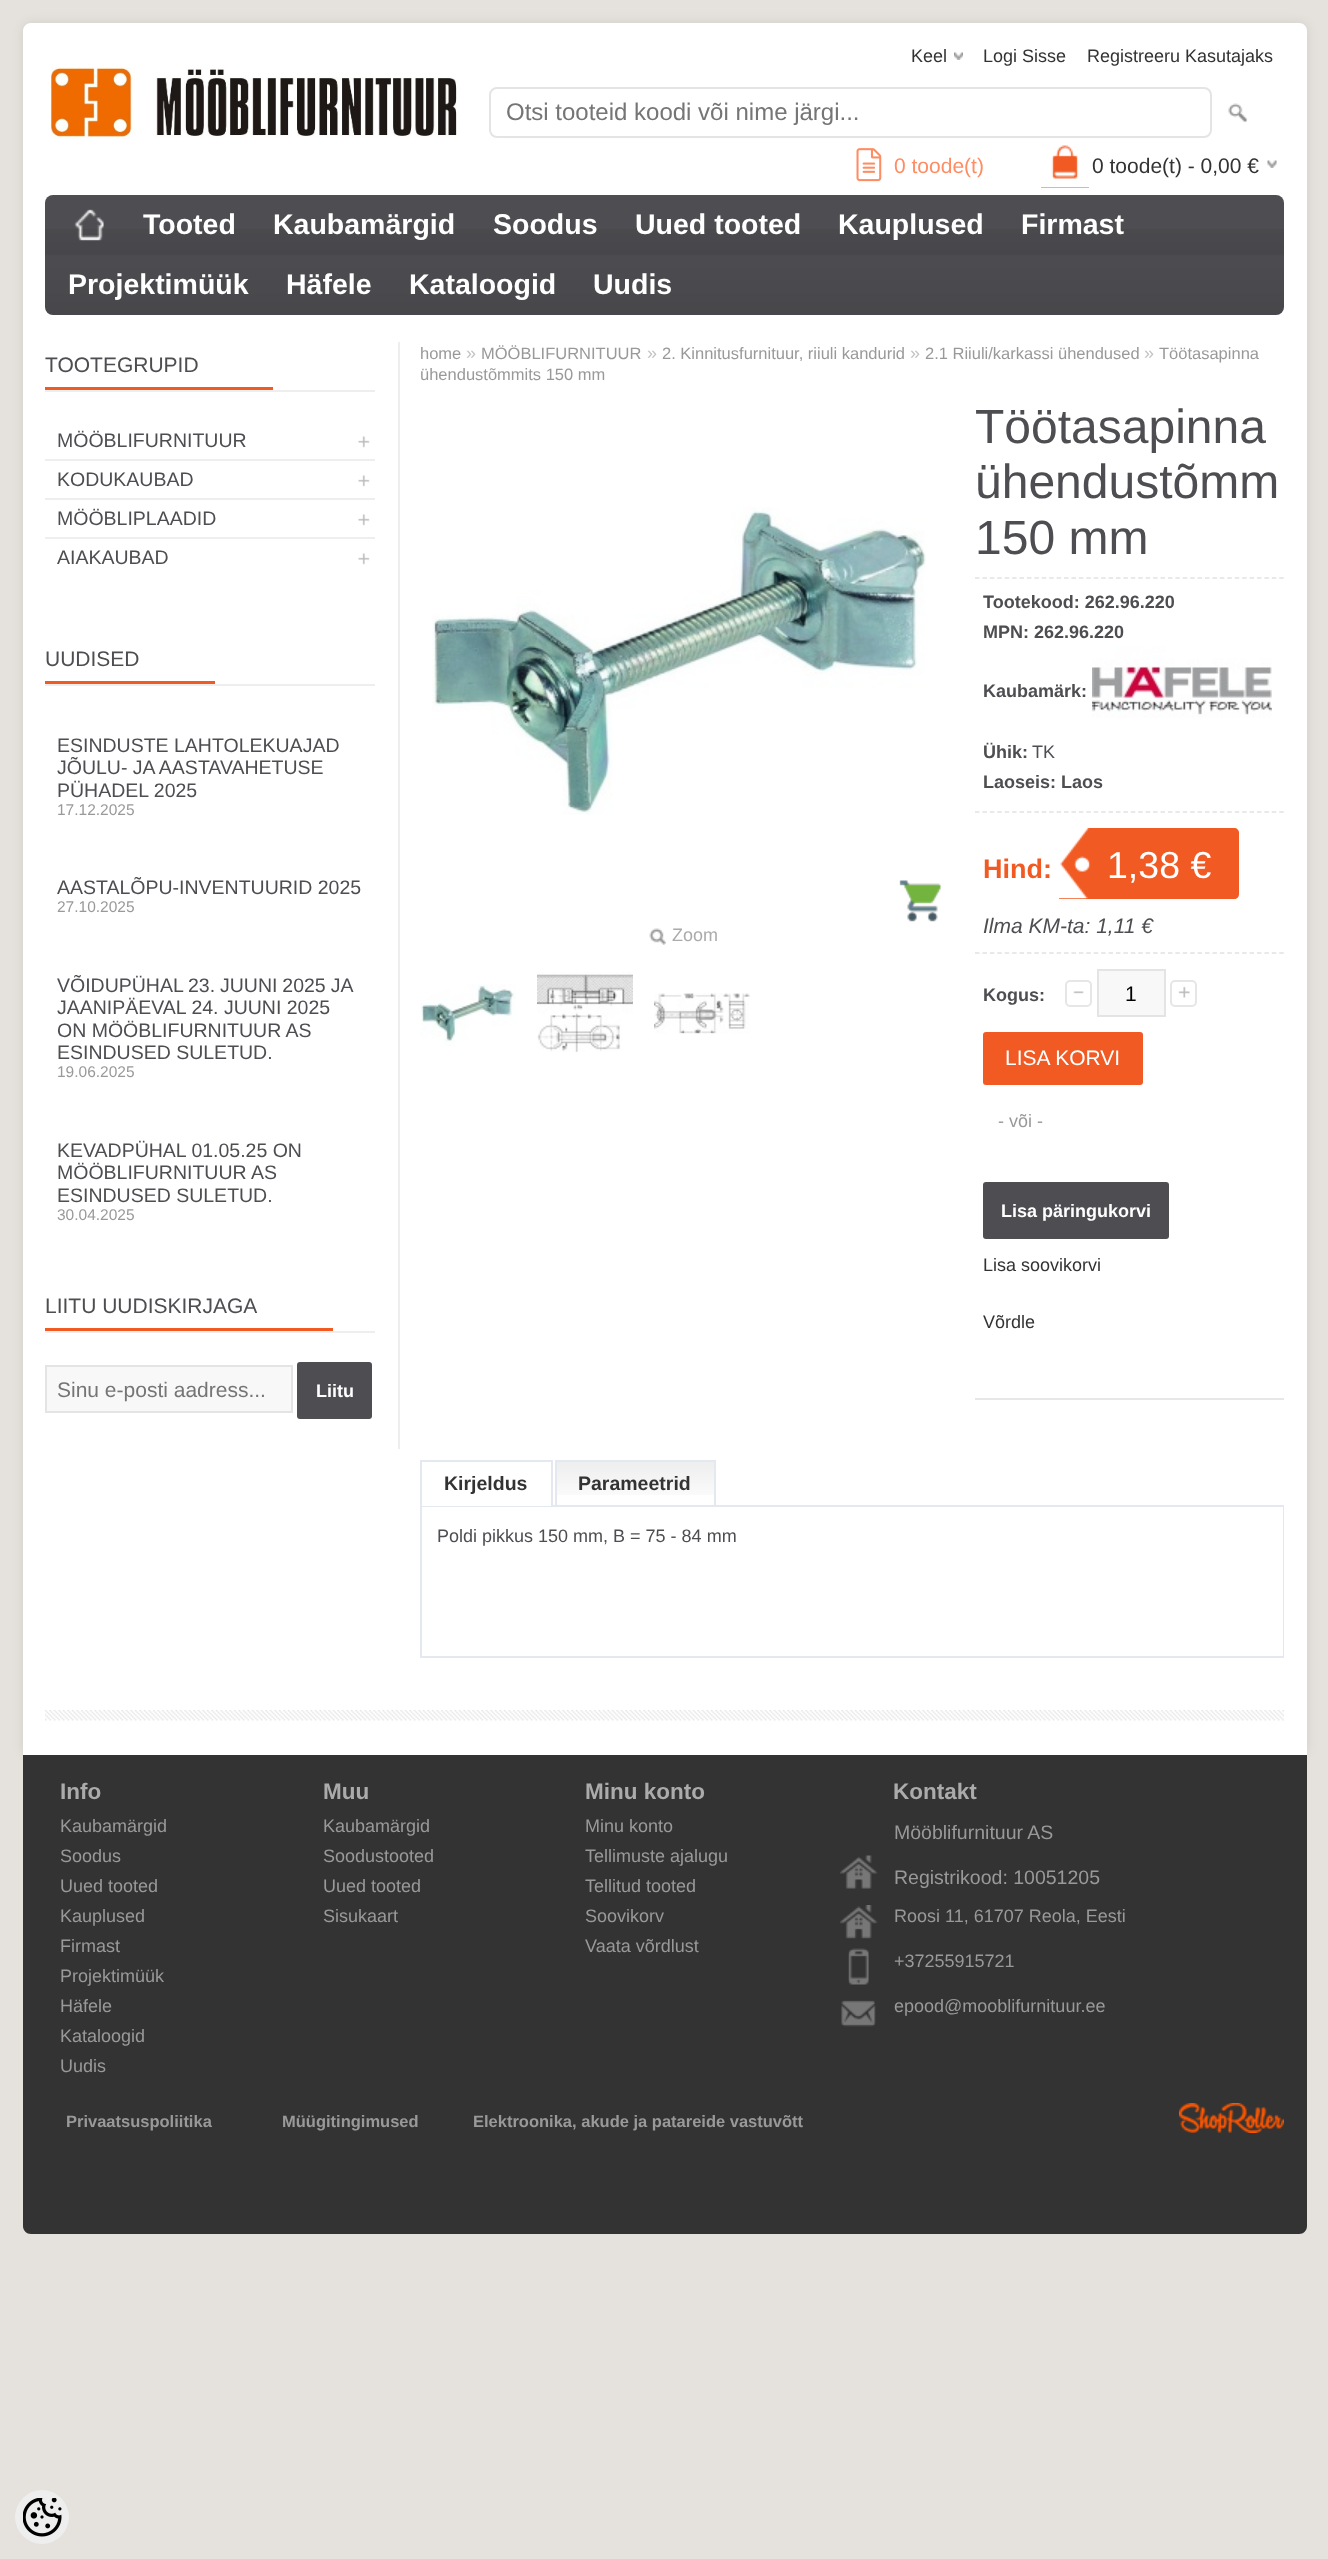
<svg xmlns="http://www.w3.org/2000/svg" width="1328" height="2559">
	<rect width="100%" height="100%" fill="#E5E1DC" />
	<rect x="23" y="23" width="1284" height="1732" rx="8" fill="#000000" fill-opacity="0.08" filter="blur(6px)" />
	<path d="M31 23H1299C1303.5 23 1307 26.5 1307 31V1755H23V31C23 26.5 26.5 23 31 23Z" fill="#FFFFFF" />
	<image x="954" y="52" width="9" height="8" href="assets/img1.png" />
	<g font-family="Liberation Sans" font-size="18" fill="#333333">
		<text x="911" y="62">Keel</text>
		<text x="983" y="62">Logi Sisse</text>
		<text x="1087" y="62">Registreeru Kasutajaks</text>
	</g>
	<image x="50" y="67" width="407" height="72" href="assets/img2.png" />
	<rect x="490" y="88" width="721" height="49" rx="7" fill="none" stroke="#E4E4E4" stroke-width="2" />
	<text x="506" y="120" font-family="Liberation Sans" font-size="24" fill="#757575">Otsi tooteid koodi või nime järgi...</text>
	<image x="1228" y="103" width="20" height="19" href="assets/img3.png" />
	<image x="856" y="148" width="26" height="34" href="assets/img4.png" />
	<text x="894" y="173" font-family="Liberation Sans" font-size="21" fill="#FF8D63">0 toode(t)</text>
	<rect x="1041" y="145" width="48" height="43" fill="#F15A23" />
	<image x="1041" y="140" width="48" height="48" href="assets/img5.png" />
	<image x="1267" y="160" width="10" height="8" href="assets/img6.png" />
	<text x="1092" y="173" font-family="Liberation Sans" font-size="21" fill="#333333">0 toode(t) - 0,00 €</text>
	<rect x="45" y="195" width="1239" height="120" rx="8" fill="#4E4E52" />
	<image x="45" y="229" width="1239" height="86" href="assets/img7.png" />
	<image x="74" y="209" width="30" height="32" href="assets/img8.png" />
	<g font-family="Liberation Sans" font-size="28.5" font-weight="700" fill="#FFFFFF">
		<text x="143" y="234">Tooted</text>
		<text x="273" y="234">Kaubamärgid</text>
		<text x="493" y="234">Soodus</text>
		<text x="635" y="234">Uued tooted</text>
		<text x="838" y="234">Kauplused</text>
		<text x="1021" y="234">Firmast</text>
		<text x="68" y="294">Projektimüük</text>
		<text x="286" y="294">Häfele</text>
		<text x="409" y="294">Kataloogid</text>
		<text x="593" y="294">Uudis</text>
	</g>
	<rect x="398" y="342" width="2" height="1107" fill="#EEEEEE" />
	<rect x="45" y="390" width="330" height="2" fill="#EEEEEE" />
	<rect x="45" y="387" width="228" height="3" fill="#F15A23" />
	<text x="45" y="372" font-family="Liberation Sans" font-size="21" fill="#4E4E52">TOOTEGRUPID</text>
	<text x="57" y="447" font-family="Liberation Sans" font-size="19.5" fill="#4E4E52">MÖÖBLIFURNITUUR</text>
	<image x="358" y="436" width="12" height="12" href="assets/img9.png" />
	<rect x="45" y="459" width="330" height="2" fill="#EEEEEE" />
	<text x="57" y="486" font-family="Liberation Sans" font-size="19.5" fill="#4E4E52">KODUKAUBAD</text>
	<image x="358" y="475" width="12" height="12" href="assets/img9.png" />
	<rect x="45" y="498" width="330" height="2" fill="#EEEEEE" />
	<text x="57" y="525" font-family="Liberation Sans" font-size="19.5" fill="#4E4E52">MÖÖBLIPLAADID</text>
	<image x="358" y="514" width="12" height="12" href="assets/img9.png" />
	<rect x="45" y="537" width="330" height="2" fill="#EEEEEE" />
	<text x="57" y="564" font-family="Liberation Sans" font-size="19.5" fill="#4E4E52">AIAKAUBAD</text>
	<image x="358" y="553" width="12" height="12" href="assets/img9.png" />
	<rect x="45" y="684" width="330" height="2" fill="#EEEEEE" />
	<rect x="45" y="681" width="170" height="3" fill="#F15A23" />
	<text x="45" y="666" font-family="Liberation Sans" font-size="21" fill="#4E4E52">UUDISED</text>
	<g font-family="Liberation Sans" font-size="19.5" fill="#4E4E52">
		<text x="57" y="752">ESINDUSTE LAHTOLEKUAJAD</text>
		<text x="57" y="774">JÕULU- JA AASTAVAHETUSE</text>
		<text x="57" y="797">PÜHADEL 2025</text>
	</g>
	<text x="57" y="815" font-family="Liberation Sans" font-size="15.5" fill="#999999">17.12.2025</text>
	<text x="57" y="894" font-family="Liberation Sans" font-size="19.5" fill="#4E4E52">AASTALÕPU-INVENTUURID 2025</text>
	<text x="57" y="912" font-family="Liberation Sans" font-size="15.5" fill="#999999">27.10.2025</text>
	<g font-family="Liberation Sans" font-size="19.5" fill="#4E4E52">
		<text x="57" y="992" word-spacing="-0.5">VÕIDUPÜHAL 23. JUUNI 2025 JA</text>
		<text x="57" y="1014">JAANIPÄEVAL 24. JUUNI 2025</text>
		<text x="57" y="1037">ON MÖÖBLIFURNITUUR AS</text>
		<text x="57" y="1059">ESINDUSED SULETUD.</text>
	</g>
	<text x="57" y="1077" font-family="Liberation Sans" font-size="15.5" fill="#999999">19.06.2025</text>
	<g font-family="Liberation Sans" font-size="19.5" fill="#4E4E52">
		<text x="57" y="1157">KEVADPÜHAL 01.05.25 ON</text>
		<text x="57" y="1179">MÖÖBLIFURNITUUR AS</text>
		<text x="57" y="1202">ESINDUSED SULETUD.</text>
	</g>
	<text x="57" y="1220" font-family="Liberation Sans" font-size="15.5" fill="#999999">30.04.2025</text>
	<rect x="45" y="1331" width="330" height="2" fill="#EEEEEE" />
	<rect x="45" y="1328" width="288" height="3" fill="#F15A23" />
	<text x="45" y="1313" font-family="Liberation Sans" font-size="21" fill="#4E4E52">LIITU UUDISKIRJAGA</text>
	<rect x="46" y="1366" width="246" height="46" fill="#F8F8F8" stroke="#E4E4E4" stroke-width="2" />
	<text x="57" y="1397" font-family="Liberation Sans" font-size="21" fill="#757575">Sinu e-posti aadress...</text>
	<rect x="297" y="1362" width="75" height="57" rx="3" fill="#4E4E52" />
	<text x="316" y="1397" font-family="Liberation Sans" font-size="18" font-weight="700" fill="#FFFFFF">Liitu</text>
	<text x="420" y="359" font-family="Liberation Sans" font-size="16.5" fill="#999999">home</text>
	<text x="466" y="359" font-family="Liberation Sans" font-size="18" fill="#C2C2C2">»</text>
	<text x="481" y="359" font-family="Liberation Sans" font-size="16.5" fill="#999999">MÖÖBLIFURNITUUR</text>
	<text x="647" y="359" font-family="Liberation Sans" font-size="18" fill="#C2C2C2">»</text>
	<text x="662" y="359" font-family="Liberation Sans" font-size="16.5" fill="#999999">2. Kinnitusfurnituur, riiuli kandurid</text>
	<text x="910" y="359" font-family="Liberation Sans" font-size="18" fill="#C2C2C2">»</text>
	<text x="925" y="359" font-family="Liberation Sans" font-size="16.5" fill="#999999">2.1 Riiuli/karkassi ühendused</text>
	<text x="1144" y="359" font-family="Liberation Sans" font-size="18" fill="#C2C2C2">»</text>
	<g font-family="Liberation Sans" font-size="16.5" fill="#999999">
		<text x="1159" y="359">Töötasapinna</text>
		<text x="420" y="380">ühendustõmmits 150 mm</text>
	</g>
	<image x="432" y="507" width="494" height="308" href="assets/img10.png" />
	<image x="899" y="880" width="42" height="42" href="assets/img11.png" />
	<image x="649" y="928" width="17" height="17" href="assets/img12.png" />
	<text x="672" y="941" font-family="Liberation Sans" font-size="18" fill="#ABABAB">Zoom</text>
	<image x="420" y="984" width="96" height="62" href="assets/img13.png" />
	<image x="537" y="972" width="96" height="80" href="assets/img14.png" />
	<image x="654" y="993" width="96" height="41" href="assets/img15.png" />
	<g font-family="Liberation Sans" font-size="48" fill="#4E4E52">
		<text x="975" y="443">Töötasapinna</text>
		<text x="975" y="498">ühendustõmm</text>
		<text x="975" y="554">150 mm</text>
	</g>
	<path d="M975 578H1284" fill="none" stroke="#E2E2E2" stroke-width="1.5" stroke-dasharray="4.5 2.92" />
	<path d="M975 812H1284" fill="none" stroke="#E2E2E2" stroke-width="1.5" stroke-dasharray="4.5 2.92" />
	<g font-family="Liberation Sans" font-size="18" font-weight="700" fill="#4E4E52">
		<text x="983" y="608">Tootekood: 262.96.220</text>
		<text x="983" y="638">MPN: 262.96.220</text>
		<text x="983" y="697">Kaubamärk:</text>
	</g>
	<image x="1092" y="646" width="180" height="72" href="assets/img16.png" />
	<text x="983" y="758" font-family="Liberation Sans" font-size="18" font-weight="700" fill="#4E4E52">Ühik:</text>
	<text x="1032" y="758" font-family="Liberation Sans" font-size="18" fill="#4E4E52">TK</text>
	<text x="983" y="788" font-family="Liberation Sans" font-size="18" font-weight="700" fill="#4E4E52">Laoseis: Laos</text>
	<path d="M975 953H1284" fill="none" stroke="#E2E2E2" stroke-width="1.5" stroke-dasharray="4.5 2.92" />
	<text x="983" y="878" font-family="Liberation Sans" font-size="27" font-weight="700" fill="#F15A23">Hind:</text>
	<path d="M1059 828H1234C1237 828 1239 830 1239 833V894C1239 897 1237 899 1234 899H1059Z" fill="#F15A23" />
	<image x="1059" y="828" width="32" height="71" href="assets/img17.png" />
	<text x="1107" y="878" font-family="Liberation Sans" font-size="37.5" fill="#FFFFFF">1,38 €</text>
	<text x="983" y="933" font-family="Liberation Sans" font-size="21" font-style="italic" fill="#4E4E52">Ilma KM-ta: 1,11 €</text>
	<rect x="975" y="1398" width="309" height="2" fill="#E7E7E7" />
	<text x="983" y="1001" font-family="Liberation Sans" font-size="18" font-weight="700" fill="#4E4E52">Kogus:</text>
	<image x="1073" y="991" width="11" height="3" href="assets/img18.png" />
	<rect x="1066" y="981" width="25" height="25" rx="4" fill="none" stroke="#E6E6E6" stroke-width="2" />
	<rect x="1098" y="970" width="67" height="46" fill="#F8F8F8" stroke="#E4E4E4" stroke-width="2" />
	<text x="1125" y="1001" font-family="Liberation Sans" font-size="21" fill="#000000">1</text>
	<image x="1178" y="986" width="12" height="12" href="assets/img19.png" />
	<rect x="1171" y="981" width="25" height="25" rx="4" fill="none" stroke="#E6E6E6" stroke-width="2" />
	<rect x="983" y="1032" width="160" height="53" rx="3" fill="#F15A23" />
	<text x="1005" y="1065" font-family="Liberation Sans" font-size="21" fill="#FFFFFF">LISA KORVI</text>
	<text x="998" y="1127" font-family="Liberation Sans" font-size="18" fill="#999999">- või -</text>
	<rect x="983" y="1182" width="186" height="57" rx="3" fill="#4E4E52" />
	<text x="1001" y="1217" font-family="Liberation Sans" font-size="18" font-weight="700" fill="#FFFFFF">Lisa päringukorvi</text>
	<g font-family="Liberation Sans" font-size="18" fill="#333333">
		<text x="983" y="1271">Lisa soovikorvi</text>
		<text x="983" y="1328">Võrdle</text>
	</g>
	<rect x="420" y="1505" width="864" height="2" fill="#E4E8F1" />
	<rect x="422" y="1505" width="129" height="1" fill="#FFFFFF" />
	<rect x="420" y="1460" width="132" height="2" fill="#E4E8F1" />
	<rect x="551" y="1460" width="2" height="46" fill="#E4E8F1" />
	<rect x="420" y="1460" width="2" height="46" fill="#E4E8F1" />
	<text x="444" y="1490" font-family="Liberation Sans" font-size="19.5" font-weight="700" fill="#333333">Kirjeldus</text>
	<image x="557" y="1462" width="157" height="33" href="assets/img20.png" />
	<rect x="555" y="1460" width="161" height="2" fill="#E4E8F1" />
	<rect x="714" y="1460" width="2" height="45" fill="#E4E8F1" />
	<rect x="555" y="1460" width="2" height="45" fill="#E4E8F1" />
	<text x="578" y="1490" font-family="Liberation Sans" font-size="19.5" font-weight="700" fill="#333333">Parameetrid</text>
	<rect x="1283" y="1506" width="1" height="152" fill="#E4E8F1" />
	<rect x="420" y="1656" width="864" height="2" fill="#E4E8F1" />
	<rect x="420" y="1506" width="2" height="152" fill="#E4E8F1" />
	<text x="437" y="1542" font-family="Liberation Sans" font-size="18" fill="#4E4E52">Poldi pikkus 150 mm, B = 75 - 84 mm</text>
	<image x="45" y="1710" width="1239" height="11" href="assets/img21.png" />
	<path d="M23 1755H1307V2226C1307 2230.5 1303.5 2234 1299 2234H31C26.5 2234 23 2230.5 23 2226Z" fill="#333333" />
	<text x="60" y="1799" font-family="Liberation Sans" font-size="22.5" font-weight="700" fill="#ABABAB">Info</text>
	<g font-family="Liberation Sans" font-size="18" fill="#999999">
		<text x="60" y="1832">Kaubamärgid</text>
		<text x="60" y="1862">Soodus</text>
		<text x="60" y="1892">Uued tooted</text>
		<text x="60" y="1922">Kauplused</text>
		<text x="60" y="1952">Firmast</text>
		<text x="60" y="1982">Projektimüük</text>
		<text x="60" y="2012">Häfele</text>
		<text x="60" y="2042">Kataloogid</text>
		<text x="60" y="2072">Uudis</text>
	</g>
	<text x="323" y="1799" font-family="Liberation Sans" font-size="22.5" font-weight="700" fill="#ABABAB">Muu</text>
	<g font-family="Liberation Sans" font-size="18" fill="#999999">
		<text x="323" y="1832">Kaubamärgid</text>
		<text x="323" y="1862">Soodustooted</text>
		<text x="323" y="1892">Uued tooted</text>
		<text x="323" y="1922">Sisukaart</text>
	</g>
	<text x="585" y="1799" font-family="Liberation Sans" font-size="22.5" font-weight="700" fill="#ABABAB">Minu konto</text>
	<g font-family="Liberation Sans" font-size="18" fill="#999999">
		<text x="585" y="1832">Minu konto</text>
		<text x="585" y="1862">Tellimuste ajalugu</text>
		<text x="585" y="1892">Tellitud tooted</text>
		<text x="585" y="1922">Soovikorv</text>
		<text x="585" y="1952">Vaata võrdlust</text>
	</g>
	<text x="893" y="1799" font-family="Liberation Sans" font-size="22.5" font-weight="700" fill="#ABABAB">Kontakt</text>
	<text x="894" y="1839" font-family="Liberation Sans" font-size="19.5" fill="#999999">Mööblifurnituur AS</text>
	<image x="840" y="1855" width="38" height="34" href="assets/img22.png" />
	<text x="894" y="1884" font-family="Liberation Sans" font-size="19.5" fill="#999999">Registrikood: 10051205</text>
	<image x="840" y="1905" width="38" height="34" href="assets/img23.png" />
	<text x="894" y="1922" font-family="Liberation Sans" font-size="18" fill="#999999">Roosi 11, 61707 Reola, Eesti</text>
	<image x="848" y="1948" width="21" height="37" href="assets/img24.png" />
	<text x="894" y="1967" font-family="Liberation Sans" font-size="18" fill="#999999">+37255915721</text>
	<image x="841" y="2000" width="35" height="27" href="assets/img25.png" />
	<text x="894" y="2012" font-family="Liberation Sans" font-size="18" fill="#999999">epood@mooblifurnituur.ee</text>
	<g font-family="Liberation Sans" font-size="16.5" font-weight="700" fill="#999999">
		<text x="66" y="2127">Privaatsuspoliitika</text>
		<text x="282" y="2127">Müügitingimused</text>
		<text x="473" y="2127">Elektroonika, akude ja patareide vastuvõtt</text>
	</g>
	<image x="1179" y="2103" width="105" height="30" href="assets/img26.png" />
	<circle cx="42" cy="2517" r="27" fill="#EEEEEE" />
	<image x="23" y="2498" width="39" height="39" href="assets/img27.png" />
</svg>
